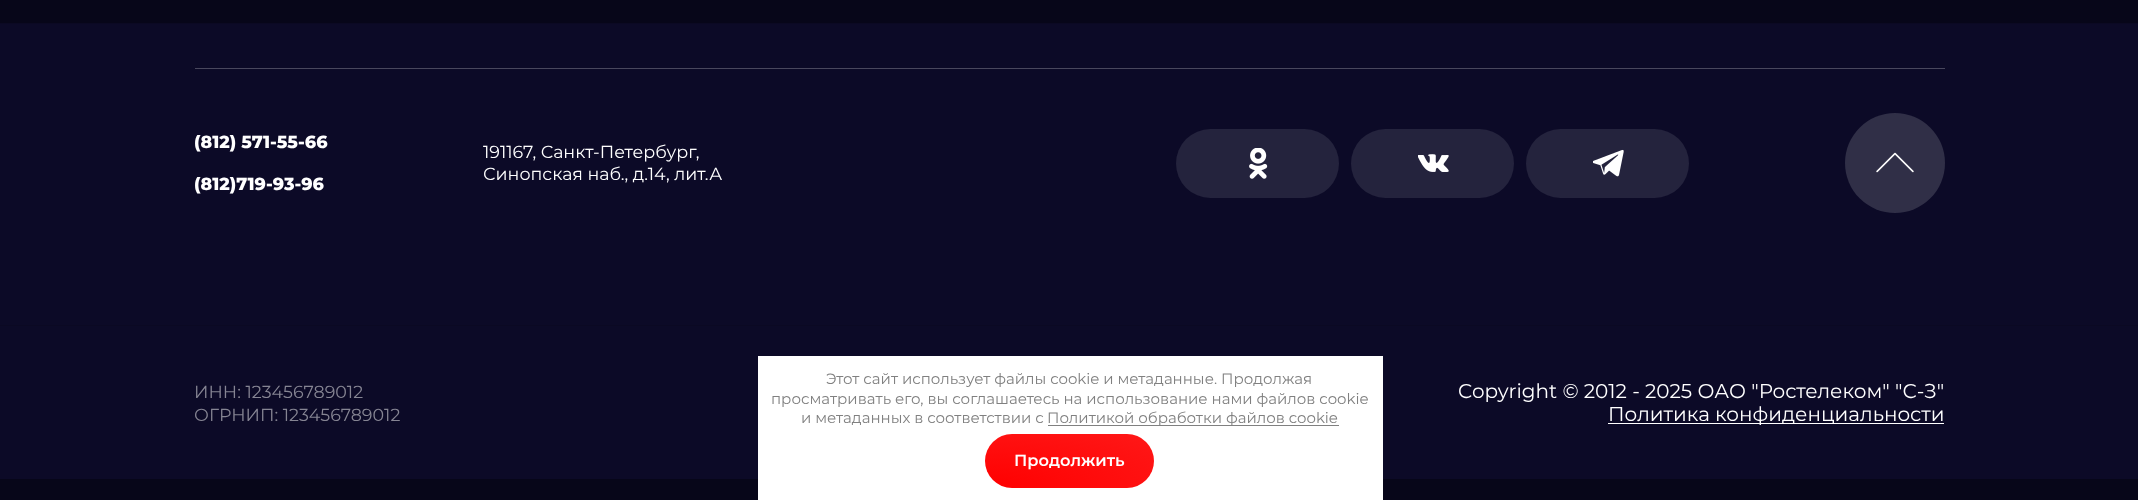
<svg xmlns="http://www.w3.org/2000/svg" width="2138" height="500">
	<defs>
		<radialGradient id="g1" gradientUnits="userSpaceOnUse" cx="0" cy="0" r="1" gradientTransform="matrix(239 0 0 76 985 488)"><stop offset="0" stop-color="#FF0000" /><stop offset="1" stop-color="#FF1818" /></radialGradient>
	</defs>
	<rect width="100%" height="100%" fill="#070619" />
	<rect x="0" y="24" width="2138" height="301" fill="#0C0A27" />
	<rect x="0" y="23" width="2138" height="1" fill="#0B0923" />
	<rect x="195" y="68" width="1750" height="1" fill="#49475D" />
	<g font-family="Montserrat" font-size="17.5" font-weight="800" fill="#FFFFFF">
		<text x="194" y="148">(812) 571-55-66</text>
		<text x="194" y="190">(812)719-93-96</text>
	</g>
	<g font-family="Montserrat" font-size="17.5" fill="#FFFFFF">
		<text x="483" y="158">191167, Санкт-Петербург,</text>
		<text x="483" y="180">Синопская наб., д.14, лит.А</text>
	</g>
	<rect x="1176" y="129" width="163" height="69" rx="34.5" fill="#24233D" />
	<image x="1249" y="148" width="19" height="31" href="assets/img1.png" />
	<rect x="1351" y="129" width="163" height="69" rx="34.5" fill="#24233D" />
	<image x="1418" y="154" width="31" height="18" href="assets/img2.png" />
	<rect x="1526" y="129" width="163" height="69" rx="34.5" fill="#24233D" />
	<image x="1593" y="149" width="31" height="28" href="assets/img3.png" />
	<circle cx="1895" cy="163" r="50" fill="#302F47" />
	<image x="1876" y="152" width="38" height="21" href="assets/img4.png" />
	<rect x="0" y="326" width="2138" height="153" fill="#0C0A27" />
	<rect x="758" y="356" width="625" height="144" fill="#FFFFFF" />
	<g font-family="Montserrat" font-size="15" fill="#808080">
		<text x="826" y="384">Этот сайт использует файлы cookie и метаданные. Продолжая</text>
		<text x="771" y="404">просматривать его, вы соглашаетесь на использование нами файлов cookie</text>
		<text x="801" y="423">и метаданных в соответствии с</text>
	</g>
	<rect x="1048" y="425" width="291" height="1" fill="#808080" />
	<text x="1047" y="423" font-family="Montserrat" font-size="15" fill="#808080">Политикой обработки файлов cookie</text>
	<rect x="985" y="434" width="169" height="54" rx="27" fill="url(#g1)" />
	<text x="1014" y="466" font-family="Montserrat" font-size="16.25" font-weight="600" fill="#FFFFFF">Продолжить</text>
	<rect x="0" y="325" width="2138" height="1" fill="#0B0923" />
	<g font-family="Montserrat" font-size="17.5" fill="#868593">
		<text x="194" y="398">ИНН: 123456789012</text>
		<text x="194" y="421">ОГРНИП: 123456789012</text>
	</g>
	<text x="1458" y="398" font-family="Montserrat" font-size="20" fill="#FFFFFF">Copyright © 2012 - 2025 ОАО "Ростелеком" "С-З"</text>
	<rect x="1608" y="423" width="336" height="1" fill="#FFFFFF" />
	<text x="1608" y="421" font-family="Montserrat" font-size="20" fill="#FFFFFF">Политика конфиденциальности</text>
</svg>
